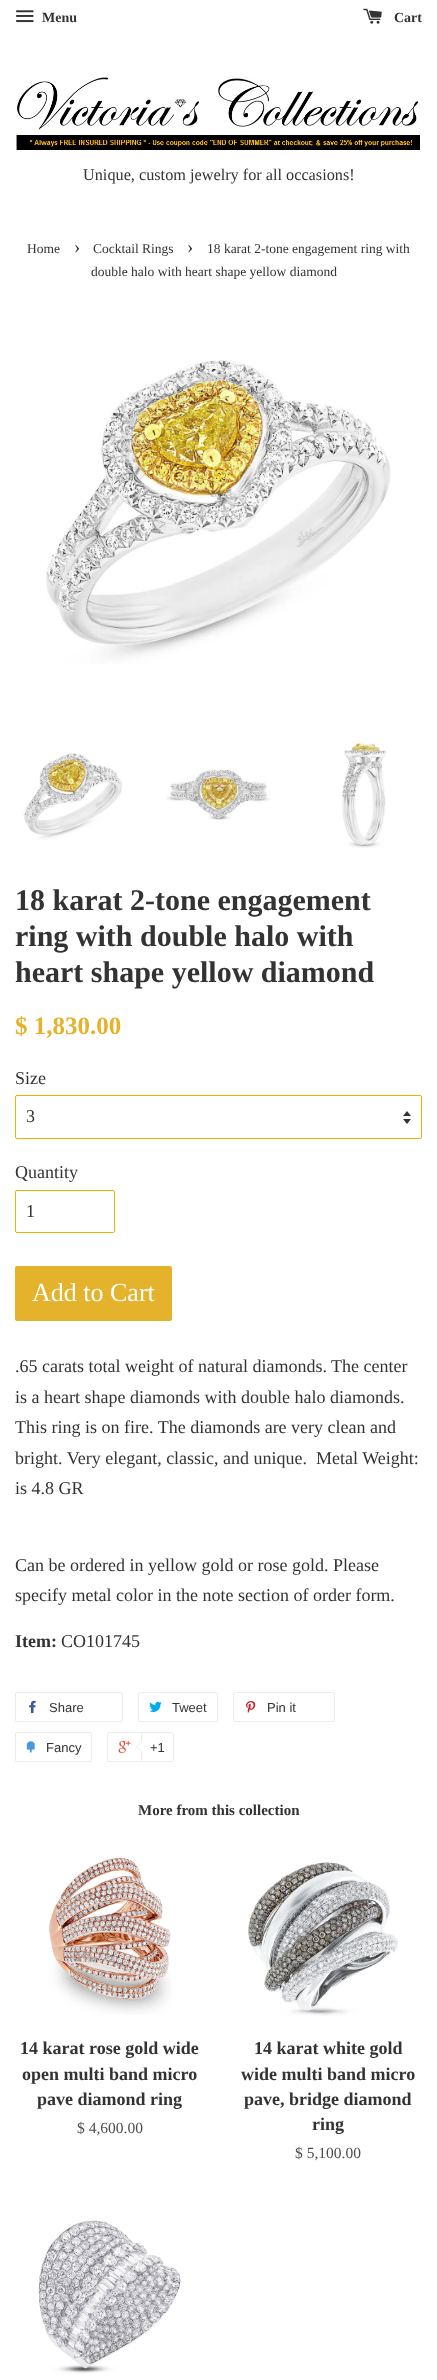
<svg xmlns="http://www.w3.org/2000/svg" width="437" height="2380">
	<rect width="100%" height="100%" fill="#FFFFFF" />
	<image x="16" y="10" width="18" height="13" href="assets/img1.png" />
	<text x="42" y="22" font-family="Liberation Serif" font-size="14" font-weight="700" fill="#333333">Menu</text>
	<image x="363" y="8" width="19" height="16" href="assets/img2.png" />
	<text x="394" y="22" font-family="Liberation Serif" font-size="14" font-weight="700" fill="#333333">Cart</text>
	<image x="16" y="77" width="404" height="73" href="assets/img3.png" />
	<text x="83" y="180" font-family="Liberation Serif" font-size="16.25" fill="#333333">Unique, custom jewelry for all occasions!</text>
	<text x="27" y="253" font-family="Liberation Serif" font-size="13.5" fill="#333333">Home</text>
	<text x="74" y="253" font-family="Liberation Serif" font-size="19" fill="#333333">›</text>
	<text x="93" y="253" font-family="Liberation Serif" font-size="13.5" fill="#333333">Cocktail Rings</text>
	<text x="187" y="253" font-family="Liberation Serif" font-size="19" fill="#333333">›</text>
	<g font-family="Liberation Serif" font-size="13.5" fill="#333333">
		<text x="207" y="253">18 karat 2-tone engagement ring with</text>
		<text x="91" y="276">double halo with heart shape yellow diamond</text>
	</g>
	<image x="46" y="360" width="345" height="304" href="assets/img4.png" />
	<image x="23" y="753" width="99" height="87" href="assets/img5.png" />
	<image x="166" y="770" width="105" height="50" href="assets/img6.png" />
	<image x="342" y="743" width="44" height="105" href="assets/img7.png" />
	<g font-family="Liberation Serif" font-size="30" font-weight="700" fill="#333333">
		<text x="15" y="910">18 karat 2-tone engagement</text>
		<text x="15" y="946">ring with double halo with</text>
		<text x="15" y="982">heart shape yellow diamond</text>
	</g>
	<text x="15" y="1034" font-family="Liberation Serif" font-size="25" font-weight="700" fill="#E5B22B">$ 1,830.00</text>
	<text x="15" y="1084" font-family="Liberation Serif" font-size="18" fill="#333333">Size</text>
	<image x="403" y="1111" width="8" height="13" href="assets/img8.png" />
	<rect x="15.5" y="1095.5" width="406" height="43" rx="1.5" fill="none" stroke="#F1AF00" />
	<g font-family="Liberation Serif" font-size="18" fill="#333333">
		<text x="26" y="1122">3</text>
		<text x="15" y="1178">Quantity</text>
	</g>
	<rect x="15.5" y="1190.5" width="99" height="42" rx="1.5" fill="none" stroke="#F1AF00" />
	<text x="26" y="1217" font-family="Liberation Serif" font-size="18" fill="#333333">1</text>
	<rect x="15" y="1266" width="157" height="55" rx="2" fill="#E5B22B" />
	<text x="32" y="1301" font-family="Liberation Serif" font-size="26" fill="#FFFFFF">Add to Cart</text>
	<g font-family="Liberation Serif" font-size="18" fill="#333333">
		<text x="15" y="1372">.65 carats total weight of natural diamonds. The center</text>
		<text x="15" y="1403">is a heart shape diamonds with double halo diamonds.</text>
		<text x="15" y="1433">This ring is on fire. The diamonds are very clean and</text>
		<text x="15" y="1464">bright. Very elegant, classic, and unique.</text>
		<text x="316" y="1464">Metal Weight:</text>
		<text x="15" y="1494">is 4.8 GR</text>
		<text x="15" y="1571">Can be ordered in yellow gold or rose gold. Please</text>
		<text x="15" y="1601">specify metal color in the note section of order form.</text>
	</g>
	<text x="15" y="1647" font-family="Liberation Serif" font-size="18" font-weight="700" fill="#333333">Item:</text>
	<text x="61" y="1647" font-family="Liberation Serif" font-size="18" fill="#333333">CO101745</text>
	<rect x="15.5" y="1692.5" width="107" height="29" rx="1.5" fill="none" stroke="#ECECEC" />
	<image x="29" y="1700" width="7" height="14" href="assets/img9.png" />
	<text x="49" y="1712" font-family="Liberation Sans" font-size="13" fill="#333333">Share</text>
	<rect x="138.5" y="1692.5" width="79" height="29" rx="1.5" fill="none" stroke="#ECECEC" />
	<image x="149" y="1701" width="13" height="11" href="assets/img10.png" />
	<text x="172" y="1712" font-family="Liberation Sans" font-size="13" fill="#333333">Tweet</text>
	<rect x="233.5" y="1692.5" width="101" height="29" rx="1.5" fill="none" stroke="#ECECEC" />
	<image x="246" y="1701" width="10" height="12" href="assets/img11.png" />
	<text x="267" y="1712" font-family="Liberation Sans" font-size="13" fill="#333333">Pin it</text>
	<rect x="15.5" y="1732.5" width="76" height="29" rx="1.5" fill="none" stroke="#ECECEC" />
	<image x="26" y="1741" width="9" height="12" href="assets/img12.png" />
	<text x="46" y="1752" font-family="Liberation Sans" font-size="13" fill="#333333">Fancy</text>
	<rect x="107.5" y="1732.5" width="65" height="29" rx="1.5" fill="none" stroke="#ECECEC" />
	<image x="118" y="1740" width="13" height="13" href="assets/img13.png" />
	<path d="M141.5 1732.5H172C173 1732.5 173.5 1733 173.5 1734V1760C173.5 1761 173 1761.5 172 1761.5H141.5Z" fill="#FFFFFF" stroke="#ECECEC" />
	<path d="M142 1741V1753L136 1747Z" fill="#ECECEC" />
	<path d="M143 1741V1753L137 1747Z" fill="#FFFFFF" />
	<text x="150" y="1752" font-family="Liberation Sans" font-size="13" fill="#333333">+1</text>
	<text x="138" y="1815" font-family="Liberation Serif" font-size="15" font-weight="700" fill="#333333">More from this collection</text>
	<image x="49" y="1857" width="123" height="158" href="assets/img14.png" />
	<g font-family="Liberation Serif" font-size="18" font-weight="700" fill="#333333">
		<text x="20" y="2054">14 karat rose gold wide</text>
		<text x="22" y="2080">open multi band micro</text>
		<text x="37" y="2105">pave diamond ring</text>
	</g>
	<text x="77" y="2133" font-family="Liberation Serif" font-size="15.5" fill="#4D4D4D">$ 4,600.00</text>
	<image x="248" y="1862" width="150" height="154" href="assets/img15.png" />
	<g font-family="Liberation Serif" font-size="18" font-weight="700" fill="#333333">
		<text x="254" y="2054">14 karat white gold</text>
		<text x="241" y="2080">wide multi band micro</text>
		<text x="244" y="2105">pave, bridge diamond</text>
		<text x="312" y="2130">ring</text>
	</g>
	<text x="295" y="2158" font-family="Liberation Serif" font-size="15.5" fill="#4D4D4D">$ 5,100.00</text>
	<image x="38" y="2220" width="143" height="154" href="assets/img16.png" />
</svg>
